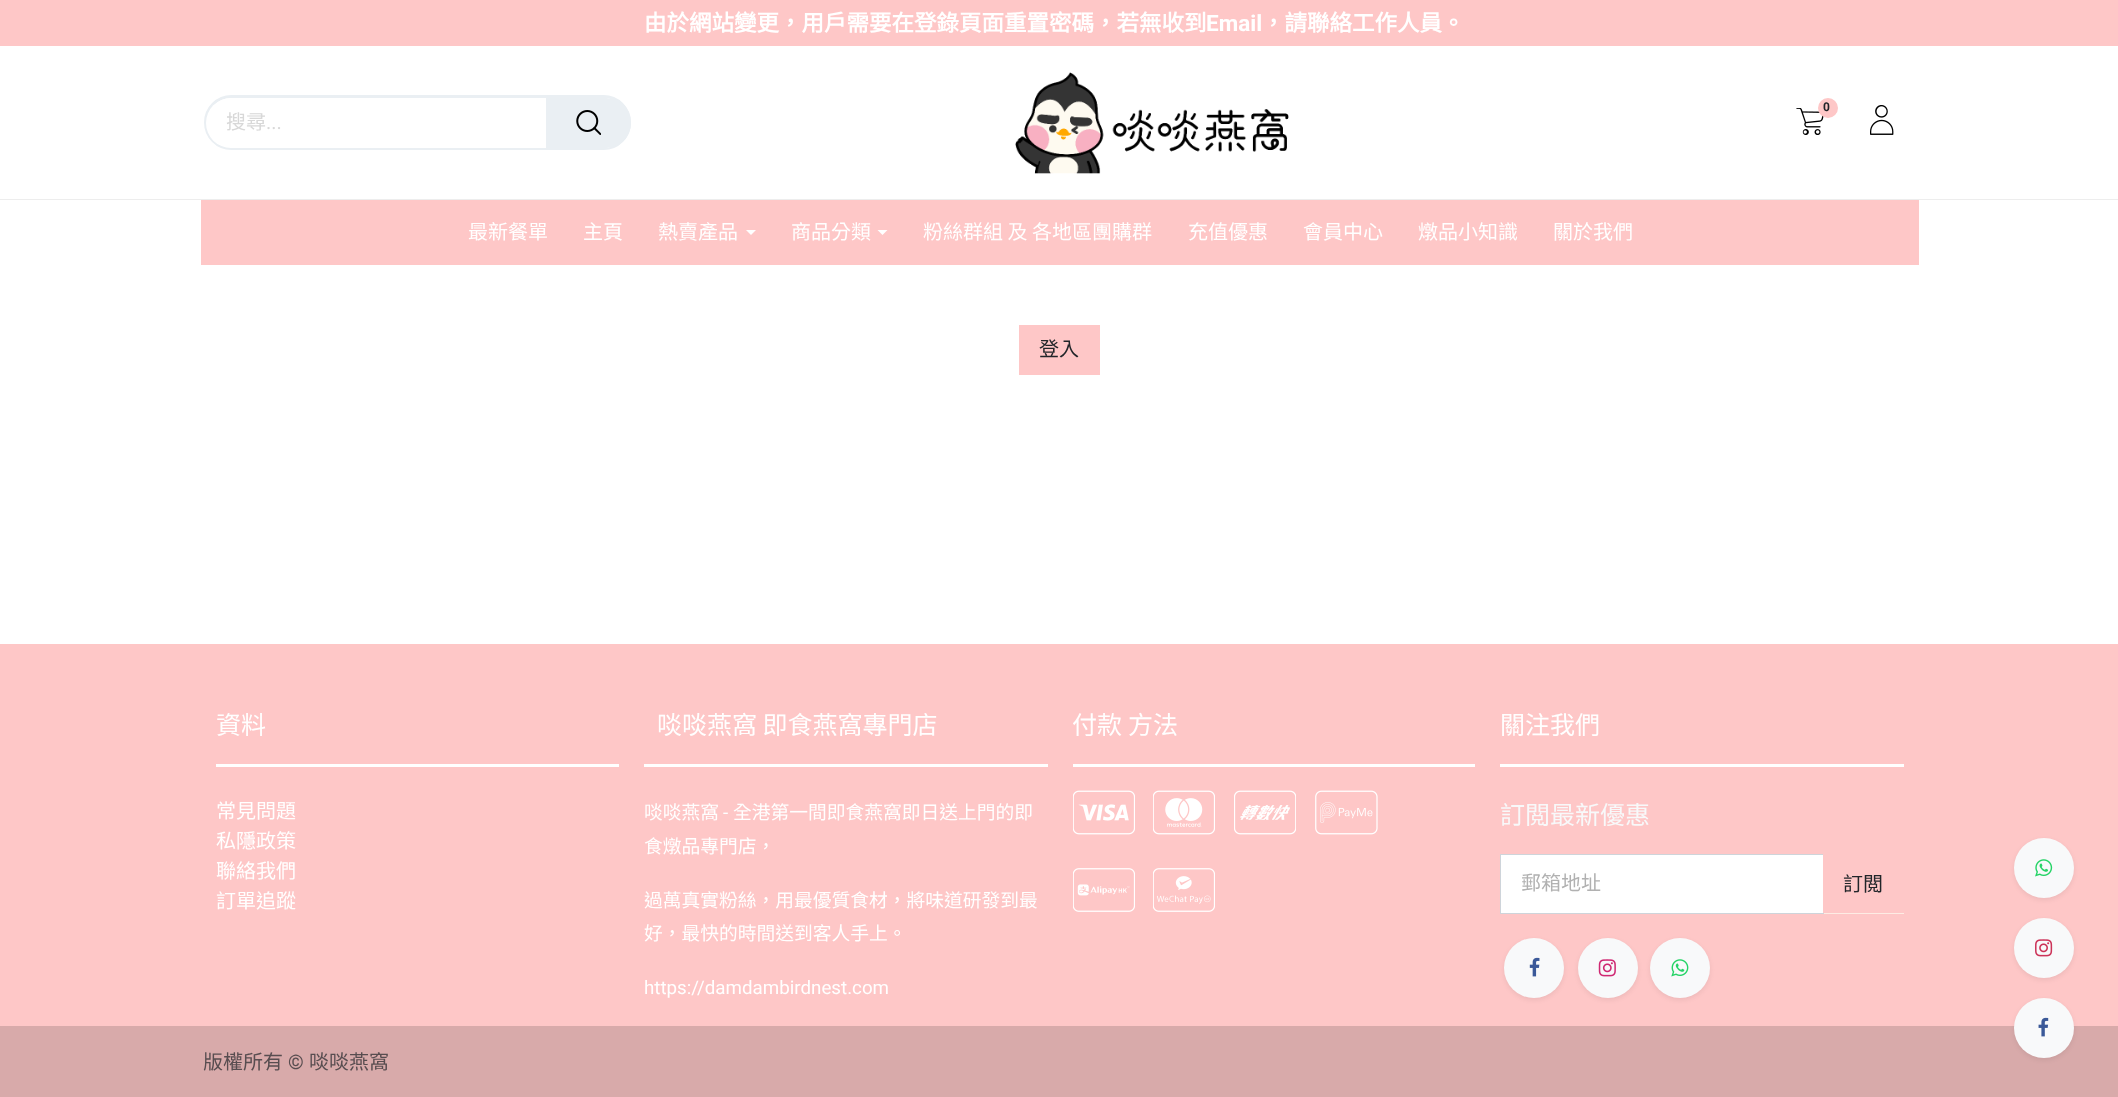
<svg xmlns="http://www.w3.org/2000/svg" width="2118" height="1097">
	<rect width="100%" height="100%" fill="#FFFFFF" />
	<rect x="0" y="0" width="2118" height="46" fill="#FEC7C7" />
	<text x="644" y="31" font-family="Noto Sans CJK TC" font-size="22.5" font-weight="700" fill="#FFFFFF">由於網站變更，用戶需要在登錄頁面重置密碼，若無收到</text>
	<text x="1206" y="31" font-family="Roboto" font-size="22.5" font-weight="700" fill="#FFFFFF">Email</text>
	<text x="1262" y="31" font-family="Noto Sans CJK TC" font-size="22.5" font-weight="700" fill="#FFFFFF">，請聯絡工作人員。</text>
	<image x="1015" y="72" width="274" height="102" href="assets/img1.png" />
	<image x="1796" y="108" width="28" height="27" href="assets/img2.png" />
	<circle cx="1828" cy="108" r="10" fill="#FEC7C7" />
	<text x="1823" y="111" font-family="Roboto" font-size="12" font-weight="700" fill="#212529">0</text>
	<image x="1870" y="105" width="24" height="30" href="assets/img3.png" />
	<rect x="205.5" y="96.5" width="424" height="52" rx="26" fill="none" stroke="#EAEFF3" stroke-width="3" />
	<rect x="206" y="98" width="423" height="50" rx="25" fill="#FFFFFF" />
	<text x="226" y="129" font-family="Noto Sans CJK TC" font-size="20" fill="#D8D8D8">搜尋</text>
	<text x="266" y="129" font-family="Roboto" font-size="20" fill="#D8D8D8">...</text>
	<path d="M546 98H606C620 98 631 109 631 123C631 137 620 148 606 148H546Z" fill="#EAEFF3" />
	<image x="576" y="110" width="25" height="25" href="assets/img4.png" />
	<rect x="0" y="199" width="2118" height="1" fill="#EDEDED" />
	<rect x="201" y="200" width="1718" height="65" fill="#FEC7C7" />
	<g font-family="Noto Sans CJK TC" font-size="20" fill="#FFFFFF">
		<text x="468" y="239">最新餐單</text>
		<text x="583" y="239">主頁</text>
		<text x="658" y="239">熱賣產品</text>
	</g>
	<path d="M746 230H756L751 235Z" fill="#FFFFFF" />
	<text x="791" y="239" font-family="Noto Sans CJK TC" font-size="20" fill="#FFFFFF">商品分類</text>
	<path d="M877.5 230H887.5L882.5 235Z" fill="#FFFFFF" />
	<g font-family="Noto Sans CJK TC" font-size="20" fill="#FFFFFF">
		<text x="923" y="239">粉絲群組 及 各地區團購群</text>
		<text x="1188" y="239">充值優惠</text>
		<text x="1303" y="239">會員中心</text>
		<text x="1418" y="239">燉品小知識</text>
		<text x="1553" y="239">關於我們</text>
	</g>
	<rect x="1019" y="325" width="81" height="50" fill="#FEC7C7" />
	<text x="1039" y="356" font-family="Noto Sans CJK TC" font-size="20" fill="#212529">登入</text>
	<rect x="0" y="644" width="2118" height="382" fill="#FEC7C7" />
	<rect x="2014" y="840" width="60" height="60" rx="30" fill="#000000" fill-opacity="0.07" filter="blur(2.5px)" />
	<circle cx="2044" cy="868" r="30" fill="#F8F9FA" />
	<image x="2035" y="859" width="18" height="18" href="assets/img5.png" />
	<rect x="2014" y="920" width="60" height="60" rx="30" fill="#000000" fill-opacity="0.07" filter="blur(2.5px)" />
	<circle cx="2044" cy="948" r="30" fill="#F8F9FA" />
	<image x="2035" y="939" width="18" height="18" href="assets/img6.png" />
	<rect x="0" y="1026" width="2118" height="71" fill="#D8AAAA" />
	<rect x="2014" y="1000" width="60" height="60" rx="30" fill="#000000" fill-opacity="0.07" filter="blur(2.5px)" />
	<circle cx="2044" cy="1028" r="30" fill="#F8F9FA" />
	<image x="2038" y="1017" width="11" height="20" href="assets/img7.png" />
	<text x="216" y="734" font-family="Noto Sans CJK TC" font-size="25" fill="#FFFFFF">資料</text>
	<rect x="216" y="764" width="403" height="3" fill="#FFFFFF" />
	<g font-family="Noto Sans CJK TC" font-size="20" fill="#FFFFFF">
		<text x="216" y="818">常見問題</text>
		<text x="216" y="848">私隱政策</text>
		<text x="216" y="878">聯絡我們</text>
		<text x="216" y="908">訂單追蹤</text>
	</g>
	<text x="657" y="734" font-family="Noto Sans CJK TC" font-size="25" fill="#FFFFFF">啖啖燕窩 即食燕窩專門店</text>
	<rect x="644" y="764" width="404" height="3" fill="#FFFFFF" />
	<text x="644" y="819" font-family="Noto Sans CJK TC" font-size="18.75" fill="#FFFFFF">啖啖燕窩</text>
	<text x="723" y="819" font-family="Roboto" font-size="18.75" fill="#FFFFFF">-</text>
	<g font-family="Noto Sans CJK TC" font-size="18.75" fill="#FFFFFF">
		<text x="733" y="819">全港第一間即食燕窩即日送上門的即</text>
		<text x="644" y="853">食燉品專門店，</text>
		<text x="644" y="907">過萬真實粉絲，用最優質食材，將味道研發到最</text>
		<text x="644" y="940">好，最快的時間送到客人手上。</text>
	</g>
	<text x="644" y="994" font-family="Roboto" font-size="18.75" fill="#FFFFFF">https://damdambirdnest.com</text>
	<g font-family="Noto Sans CJK TC" font-size="25" fill="#FFFFFF">
		<text x="1072" y="734">付款</text>
		<text x="1128" y="734">方法</text>
	</g>
	<rect x="1073" y="764" width="402" height="3" fill="#FFFFFF" />
	<image x="1073" y="790" width="62" height="45" href="assets/img8.png" />
	<image x="1153" y="790" width="62" height="45" href="assets/img9.png" />
	<image x="1234" y="790" width="62" height="45" href="assets/img10.png" />
	<image x="1315" y="790" width="63" height="45" href="assets/img11.png" />
	<image x="1073" y="868" width="62" height="44" href="assets/img12.png" />
	<image x="1153" y="868" width="62" height="44" href="assets/img13.png" />
	<text x="1500" y="734" font-family="Noto Sans CJK TC" font-size="25" fill="#FFFFFF">關注我們</text>
	<rect x="1500" y="764" width="404" height="3" fill="#FFFFFF" />
	<text x="1500" y="824" font-family="Noto Sans CJK TC" font-size="25" fill="#F8F9FA">訂閲最新優惠</text>
	<rect x="1824" y="913" width="80" height="1" fill="#FDECE4" />
	<rect x="1500.5" y="854.5" width="323" height="59" fill="#FFFFFF" stroke="#CED4DA" />
	<text x="1521" y="890" font-family="Noto Sans CJK TC" font-size="20" fill="#B1B1B1">郵箱地址</text>
	<rect x="1823" y="854" width="1" height="59" fill="#FEC7C7" />
	<text x="1843" y="891" font-family="Noto Sans CJK TC" font-size="20" fill="#212529">訂閲</text>
	<rect x="1504" y="940" width="60" height="60" rx="30" fill="#000000" fill-opacity="0.07" filter="blur(2.5px)" />
	<circle cx="1534" cy="968" r="30" fill="#F8F9FA" />
	<image x="1529" y="957" width="11" height="20" href="assets/img14.png" />
	<rect x="1578" y="940" width="60" height="60" rx="30" fill="#000000" fill-opacity="0.07" filter="blur(2.5px)" />
	<circle cx="1608" cy="968" r="30" fill="#F8F9FA" />
	<image x="1598" y="959" width="18" height="18" href="assets/img15.png" />
	<rect x="1650" y="940" width="60" height="60" rx="30" fill="#000000" fill-opacity="0.07" filter="blur(2.5px)" />
	<circle cx="1680" cy="968" r="30" fill="#F8F9FA" />
	<image x="1671" y="959" width="18" height="18" href="assets/img16.png" />
	<text x="203" y="1069" font-family="Noto Sans CJK TC" font-size="20" fill="#584D50">版權所有</text>
	<text x="288" y="1069" font-family="Roboto" font-size="20" fill="#584D50">©</text>
	<text x="309" y="1069" font-family="Noto Sans CJK TC" font-size="20" fill="#584D50">啖啖燕窩</text>
</svg>
